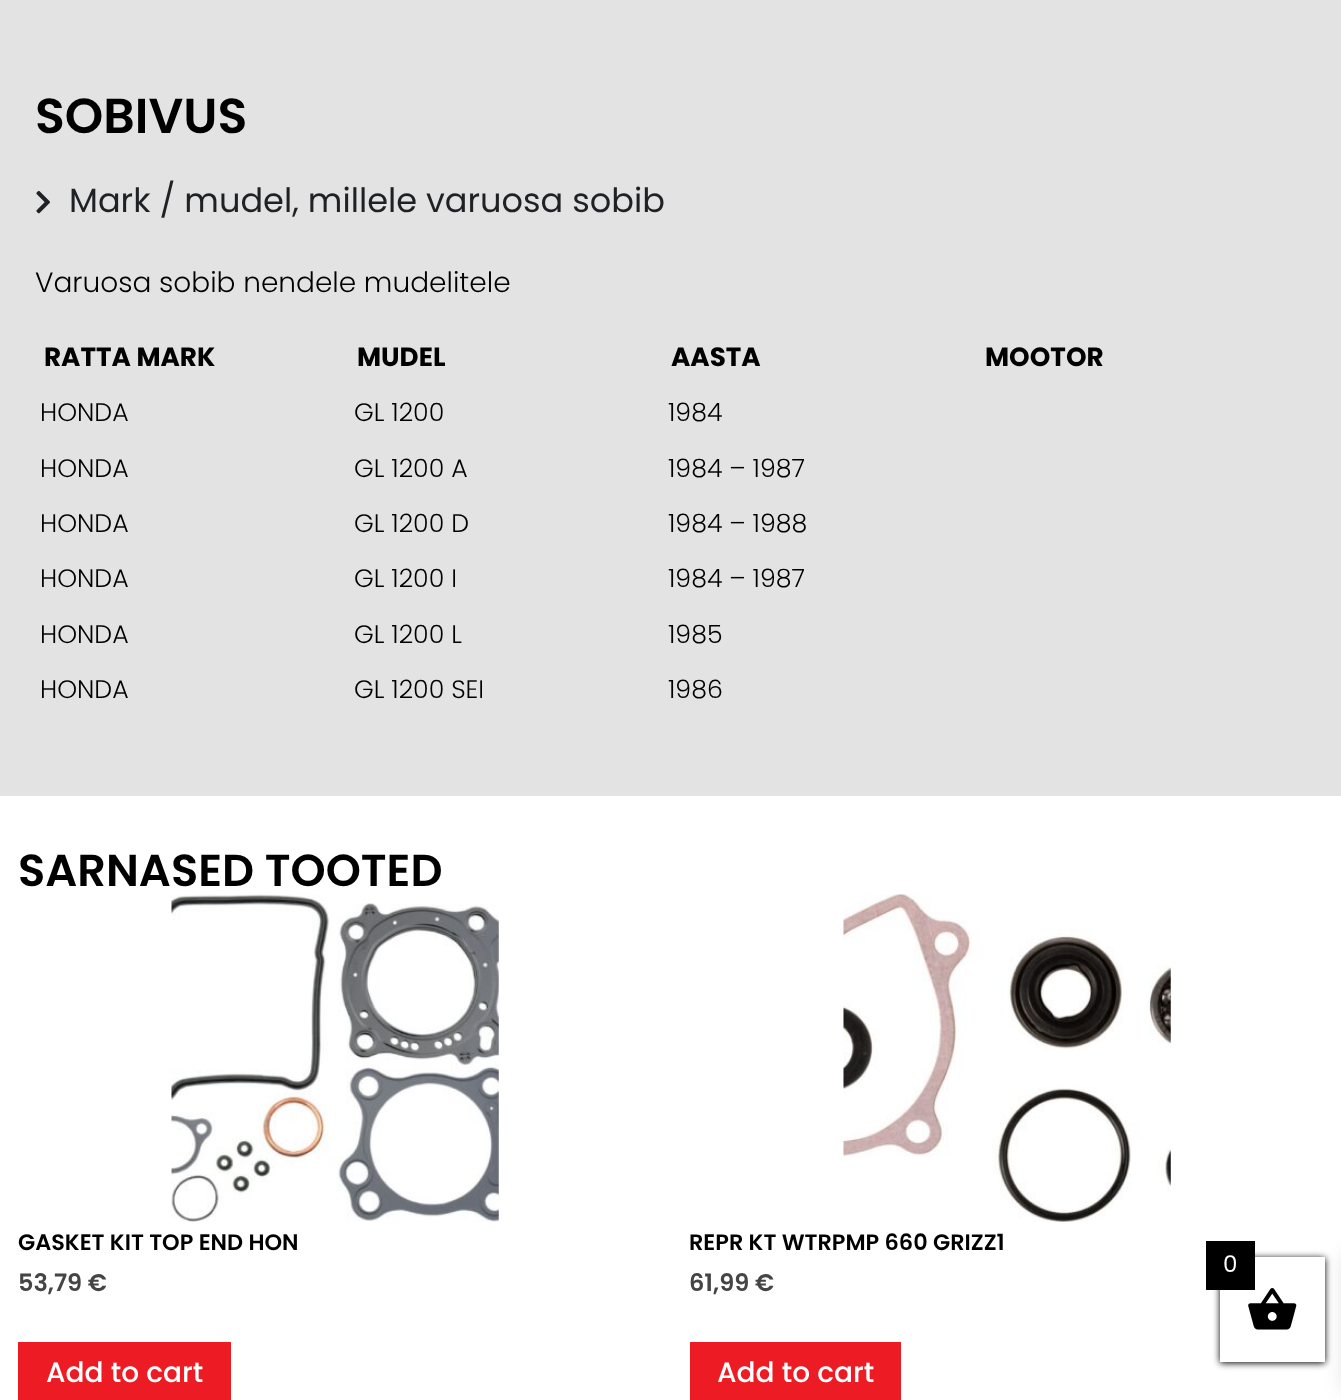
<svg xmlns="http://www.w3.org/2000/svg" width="1341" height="1400">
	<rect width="100%" height="100%" fill="#E3E3E3" />
	<text x="35" y="133" font-family="Poppins" font-size="49" font-weight="600" fill="#000000">SOBIVUS</text>
	<image x="36" y="190" width="14" height="24" href="assets/img1.png" />
	<text x="69" y="212" font-family="Poppins" font-size="33.6" fill="#1F2124">Mark / mudel, millele varuosa sobib</text>
	<text x="35" y="292" font-family="Poppins" font-size="28" font-weight="300" fill="#000000">Varuosa sobib nendele mudelitele</text>
	<g font-family="Poppins" font-size="26.25" font-weight="700" fill="#000000">
		<text x="44" y="366">RATTA MARK</text>
		<text x="357" y="366">MUDEL</text>
		<text x="671" y="366">AASTA</text>
		<text x="985" y="366">MOOTOR</text>
	</g>
	<g font-family="Poppins" font-size="25.25" font-weight="300" fill="#000000">
		<text x="40" y="421">HONDA</text>
		<text x="354" y="421">GL 1200</text>
		<text x="668" y="421">1984</text>
		<text x="40" y="477">HONDA</text>
		<text x="354" y="477">GL 1200 A</text>
		<text x="668" y="477">1984 – 1987</text>
		<text x="40" y="532">HONDA</text>
		<text x="354" y="532">GL 1200 D</text>
		<text x="668" y="532">1984 – 1988</text>
		<text x="40" y="587">HONDA</text>
		<text x="354" y="587">GL 1200 I</text>
		<text x="668" y="587">1984 – 1987</text>
		<text x="40" y="643">HONDA</text>
		<text x="354" y="643">GL 1200 L</text>
		<text x="668" y="643">1985</text>
		<text x="40" y="698">HONDA</text>
		<text x="354" y="698">GL 1200 SEI</text>
		<text x="668" y="698">1986</text>
	</g>
	<rect x="0" y="796" width="1341" height="604" fill="#FFFFFF" />
	<text x="18" y="886" font-family="Poppins" font-size="44.75" font-weight="600" fill="#000000">SARNASED TOOTED</text>
	<image x="171" y="894" width="328" height="328" href="assets/img2.png" />
	<text x="18" y="1250" font-family="Poppins" font-size="22.4" font-weight="600" fill="#000000">GASKET KIT TOP END HON</text>
	<text x="18" y="1291" font-family="Poppins" font-size="24" font-weight="600" fill="#454545">53,79 €</text>
	<rect x="18" y="1342" width="213" height="58" fill="#ED1C24" />
	<text x="46" y="1382" font-family="Poppins" font-size="28" font-weight="500" fill="#FFFFFF">Add to cart</text>
	<image x="843" y="894" width="328" height="328" href="assets/img3.png" />
	<text x="689" y="1250" font-family="Poppins" font-size="22.4" font-weight="600" fill="#000000">REPR KT WTRPMP 660 GRIZZ1</text>
	<text x="689" y="1291" font-family="Poppins" font-size="24" font-weight="600" fill="#454545">61,99 €</text>
	<rect x="690" y="1342" width="211" height="58" fill="#ED1C24" />
	<text x="717" y="1382" font-family="Poppins" font-size="28" font-weight="500" fill="#FFFFFF">Add to cart</text>
	<rect x="1220" y="1258" width="105" height="105" fill="#000000" filter="blur(3.5px)" />
	<rect x="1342" y="1255" width="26" height="136" fill="#000000" fill-opacity="0.1" filter="blur(9px)" />
	<rect x="1220" y="1257" width="105" height="105" fill="#FFFFFF" />
	<image x="1248" y="1288" width="49" height="42" href="assets/img4.png" />
	<rect x="1206" y="1241" width="49" height="49" fill="#000000" />
	<text x="1223" y="1272" font-family="Poppins" font-size="23" fill="#FFFFFF">0</text>
</svg>
